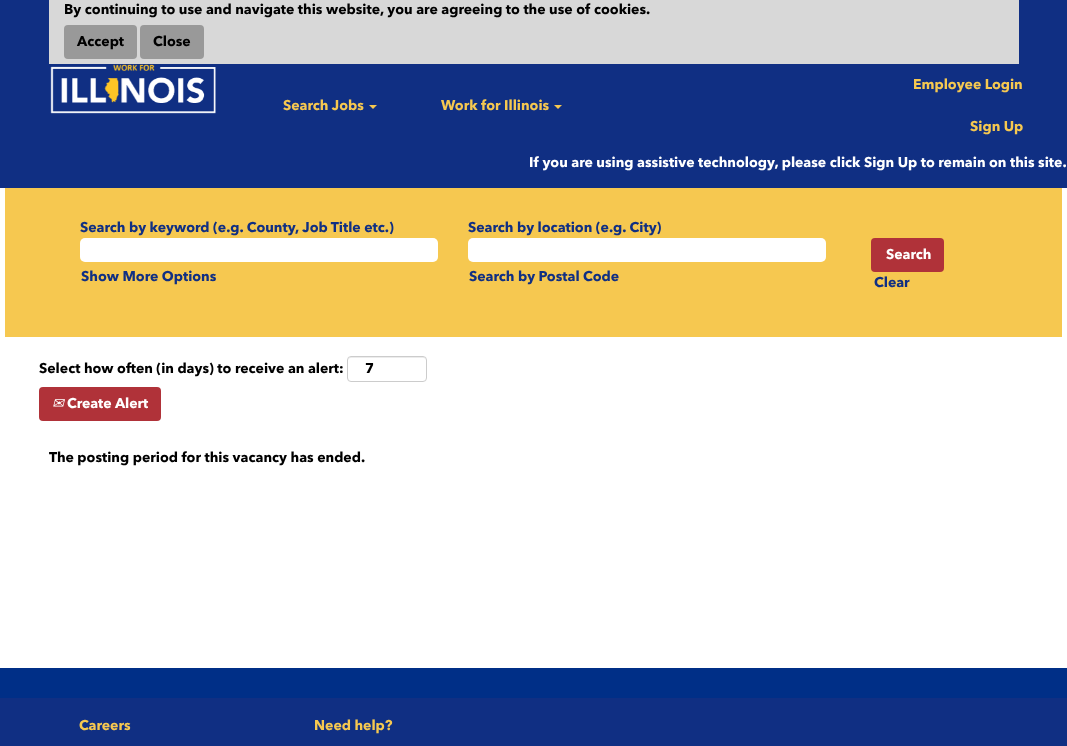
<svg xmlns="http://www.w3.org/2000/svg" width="1067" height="746">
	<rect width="100%" height="100%" fill="#FFFFFF" />
	<rect x="0" y="0" width="1067" height="188" fill="#102F83" />
	<rect x="49" y="0" width="970" height="64" fill="#D8D8D8" />
	<text x="64" y="14" font-family="Avenir Next" font-size="14" font-weight="700" fill="#000000">By continuing to use and navigate this website, you are agreeing to the use of cookies.</text>
	<rect x="64" y="25" width="73" height="34" rx="4" fill="#999999" />
	<text x="77" y="46" font-family="Avenir Next" font-size="14" font-weight="700" fill="#000000">Accept</text>
	<rect x="140" y="25" width="64" height="34" rx="4" fill="#999999" />
	<text x="153" y="46" font-family="Avenir Next" font-size="14" font-weight="700" fill="#000000">Close</text>
	<image x="50" y="64" width="166" height="50" href="assets/img1.png" />
	<text x="283" y="110" font-family="Avenir Next" font-size="14" font-weight="700" fill="#F6C850">Search Jobs</text>
	<path d="M369 105H377L373 109Z" fill="#F6C850" />
	<text x="441" y="110" font-family="Avenir Next" font-size="14" font-weight="700" fill="#F6C850">Work for Illinois</text>
	<path d="M554 105H562L558 109Z" fill="#F6C850" />
	<g font-family="Avenir Next" font-size="14" font-weight="700" fill="#F6C850">
		<text x="913" y="89">Employee Login</text>
		<text x="970" y="131">Sign Up</text>
	</g>
	<text x="529" y="167" font-family="Avenir Next" font-size="14" font-weight="700" fill="#FFFFFF">If you are using assistive technology, please click Sign Up to remain on this site.</text>
	<rect x="5" y="188" width="1057" height="149" fill="#F6C850" />
	<text x="80" y="232" font-family="Avenir Next" font-size="14" font-weight="700" fill="#102F83">Search by keyword (e.g. County, Job Title etc.)</text>
	<rect x="80" y="238" width="358" height="24" rx="5" fill="#FFFFFF" />
	<text x="468" y="232" font-family="Avenir Next" font-size="14" font-weight="700" fill="#102F83">Search by location (e.g. City)</text>
	<rect x="468" y="238" width="358" height="24" rx="5" fill="#FFFFFF" />
	<g font-family="Avenir Next" font-size="14" font-weight="700" fill="#102F83">
		<text x="469" y="281">Search by Postal Code</text>
		<text x="81" y="281">Show More Options</text>
	</g>
	<rect x="871" y="238" width="73" height="34" rx="4" fill="#B03239" />
	<text x="886" y="259" font-family="Avenir Next" font-size="14" font-weight="700" fill="#FFFFFF">Search</text>
	<text x="874" y="287" font-family="Avenir Next" font-size="14" font-weight="700" fill="#102F83">Clear</text>
	<text x="39" y="373" font-family="Avenir Next" font-size="14" font-weight="700" fill="#000000">Select how often (in days) to receive an alert:</text>
	<path d="M351 358H423C425 358 426 359 426 361C426 354 415 357 411 357H363C359 357 348 354 348 361C348 359 349 358 351 358Z" fill="#ECECEC" />
	<rect x="347.5" y="356.5" width="79" height="25" rx="3.5" fill="none" stroke="#CCCCCC" />
	<text x="365" y="373" font-family="Avenir Next" font-size="14" font-weight="700" fill="#000000">7</text>
	<rect x="39" y="387" width="122" height="34" rx="4" fill="#B03239" />
	<text x="52" y="408" font-family="DejaVu Sans" font-size="14" font-style="italic" fill="#FFFFFF">✉</text>
	<text x="67" y="408" font-family="Avenir Next" font-size="14" font-weight="700" fill="#FFFFFF">Create Alert</text>
	<text x="49" y="462" font-family="Avenir Next" font-size="14" font-weight="700" fill="#000000">The posting period for this vacancy has ended.</text>
	<rect x="0" y="668" width="1067" height="30" fill="#002F87" />
	<rect x="0" y="698" width="1067" height="48" fill="#102F83" />
	<g font-family="Avenir Next" font-size="14" font-weight="700" fill="#F6C850">
		<text x="79" y="730">Careers</text>
		<text x="314" y="730">Need help?</text>
	</g>
</svg>
